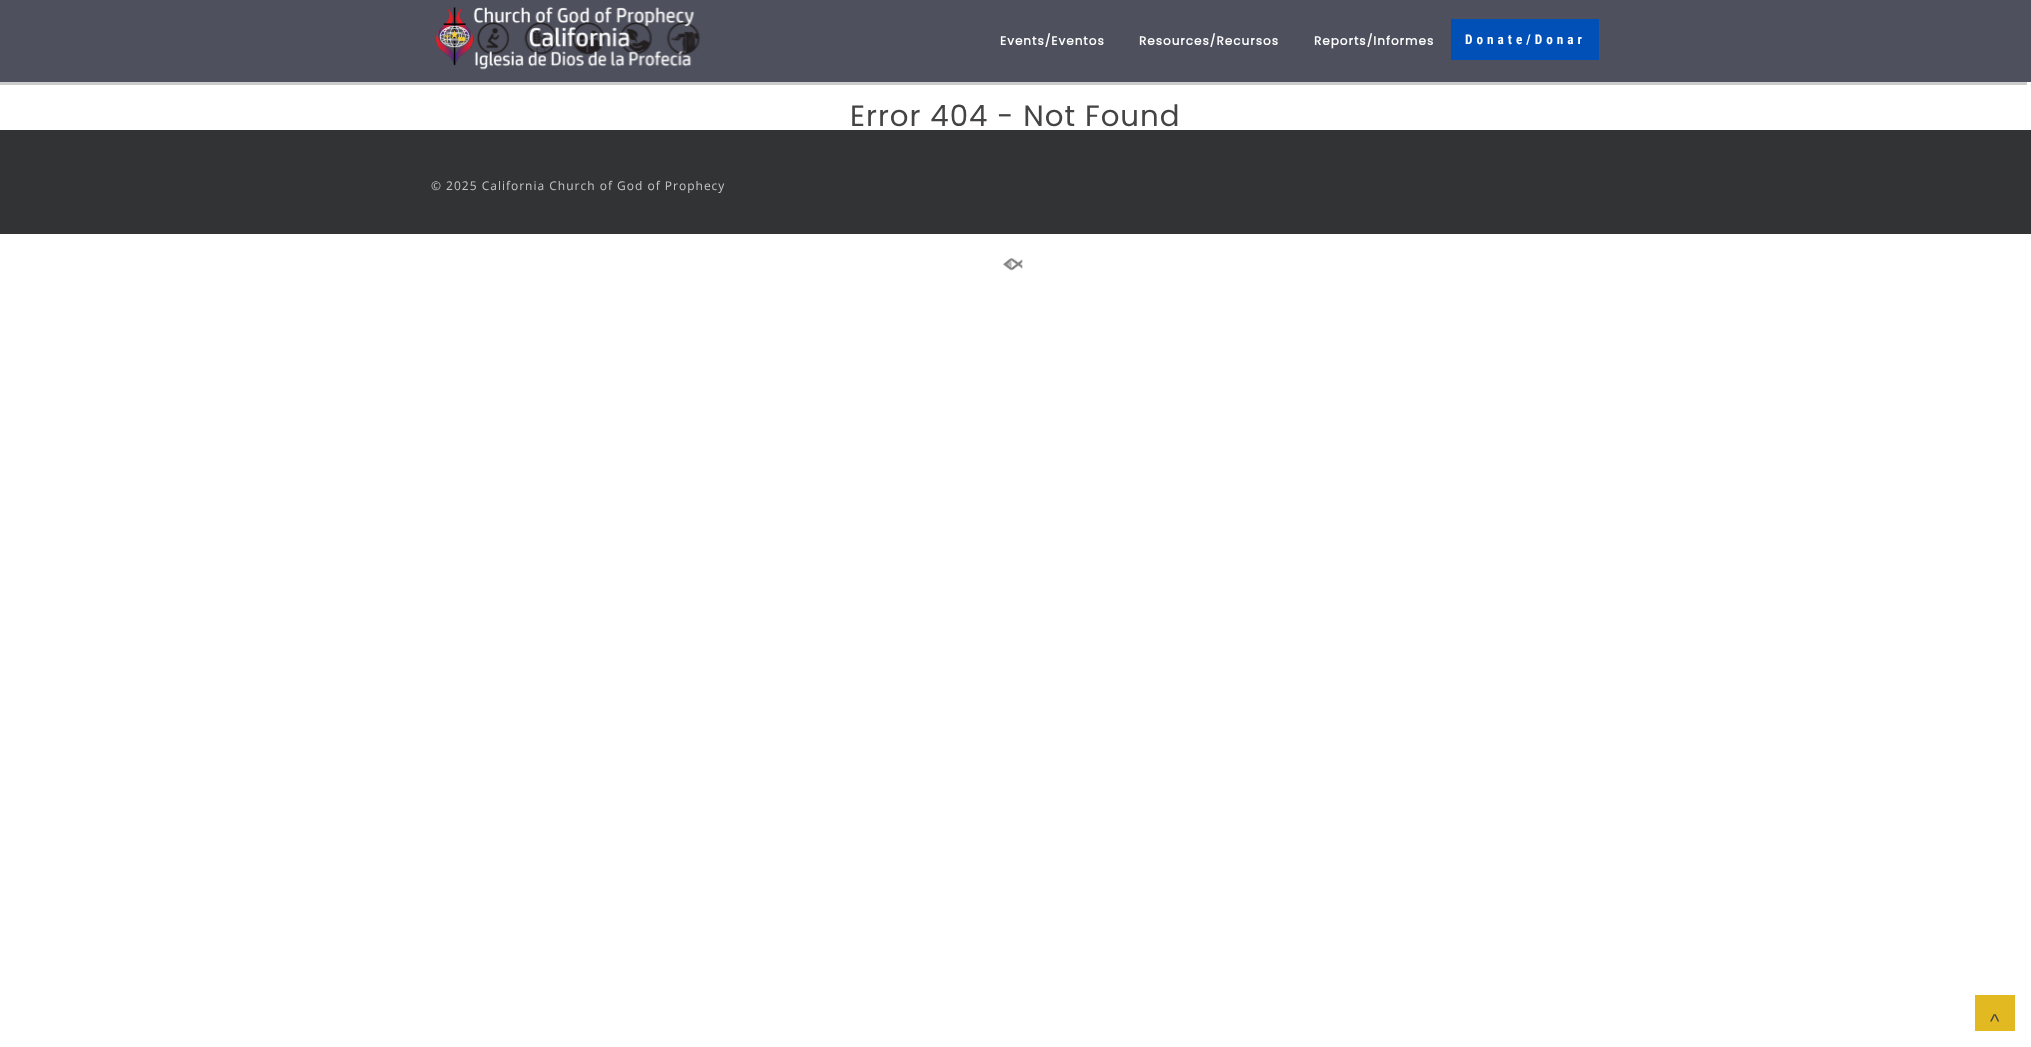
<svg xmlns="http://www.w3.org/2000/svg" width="2031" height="1047">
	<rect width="100%" height="100%" fill="#FFFFFF" />
	<path d="M-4 3V85H2027V82H0V3Z" fill="#CCCCCC" />
	<rect x="0" y="0" width="2031" height="82" fill="#4E505D" />
	<image x="436" y="7" width="264" height="63" href="assets/img1.png" />
	<g font-family="Poppins" font-size="12" font-weight="700" letter-spacing="1" fill="#FFFFFF">
		<text x="1000" y="45">Events/Eventos</text>
		<text x="1139" y="45">Resources/Recursos</text>
		<text x="1314" y="45">Reports/Informes</text>
	</g>
	<rect x="1451" y="19" width="148" height="41" fill="#0050B8" />
	<text x="1465" y="44" font-family="Roboto Condensed" font-size="13.25" font-weight="700" letter-spacing="4" fill="#FFFFFF">Donate/Donar</text>
	<text x="850" y="126" font-family="Poppins" font-size="29.25" letter-spacing="1" fill="#444444">Error 404 - Not Found</text>
	<rect x="0" y="130" width="2031" height="104" fill="#323335" />
	<text x="431" y="190" font-family="Open Sans" font-size="12" letter-spacing="1" fill="#C8C7C7">© 2025 California Church of God of Prophecy</text>
	<image x="1003" y="258" width="20" height="13" href="assets/img2.png" />
	<rect x="1975" y="995" width="40" height="36" fill="#E3B922" />
	<text x="1990" y="1028" font-family="Liberation Sans" font-size="20" letter-spacing="1" fill="#444444">^</text>
</svg>
